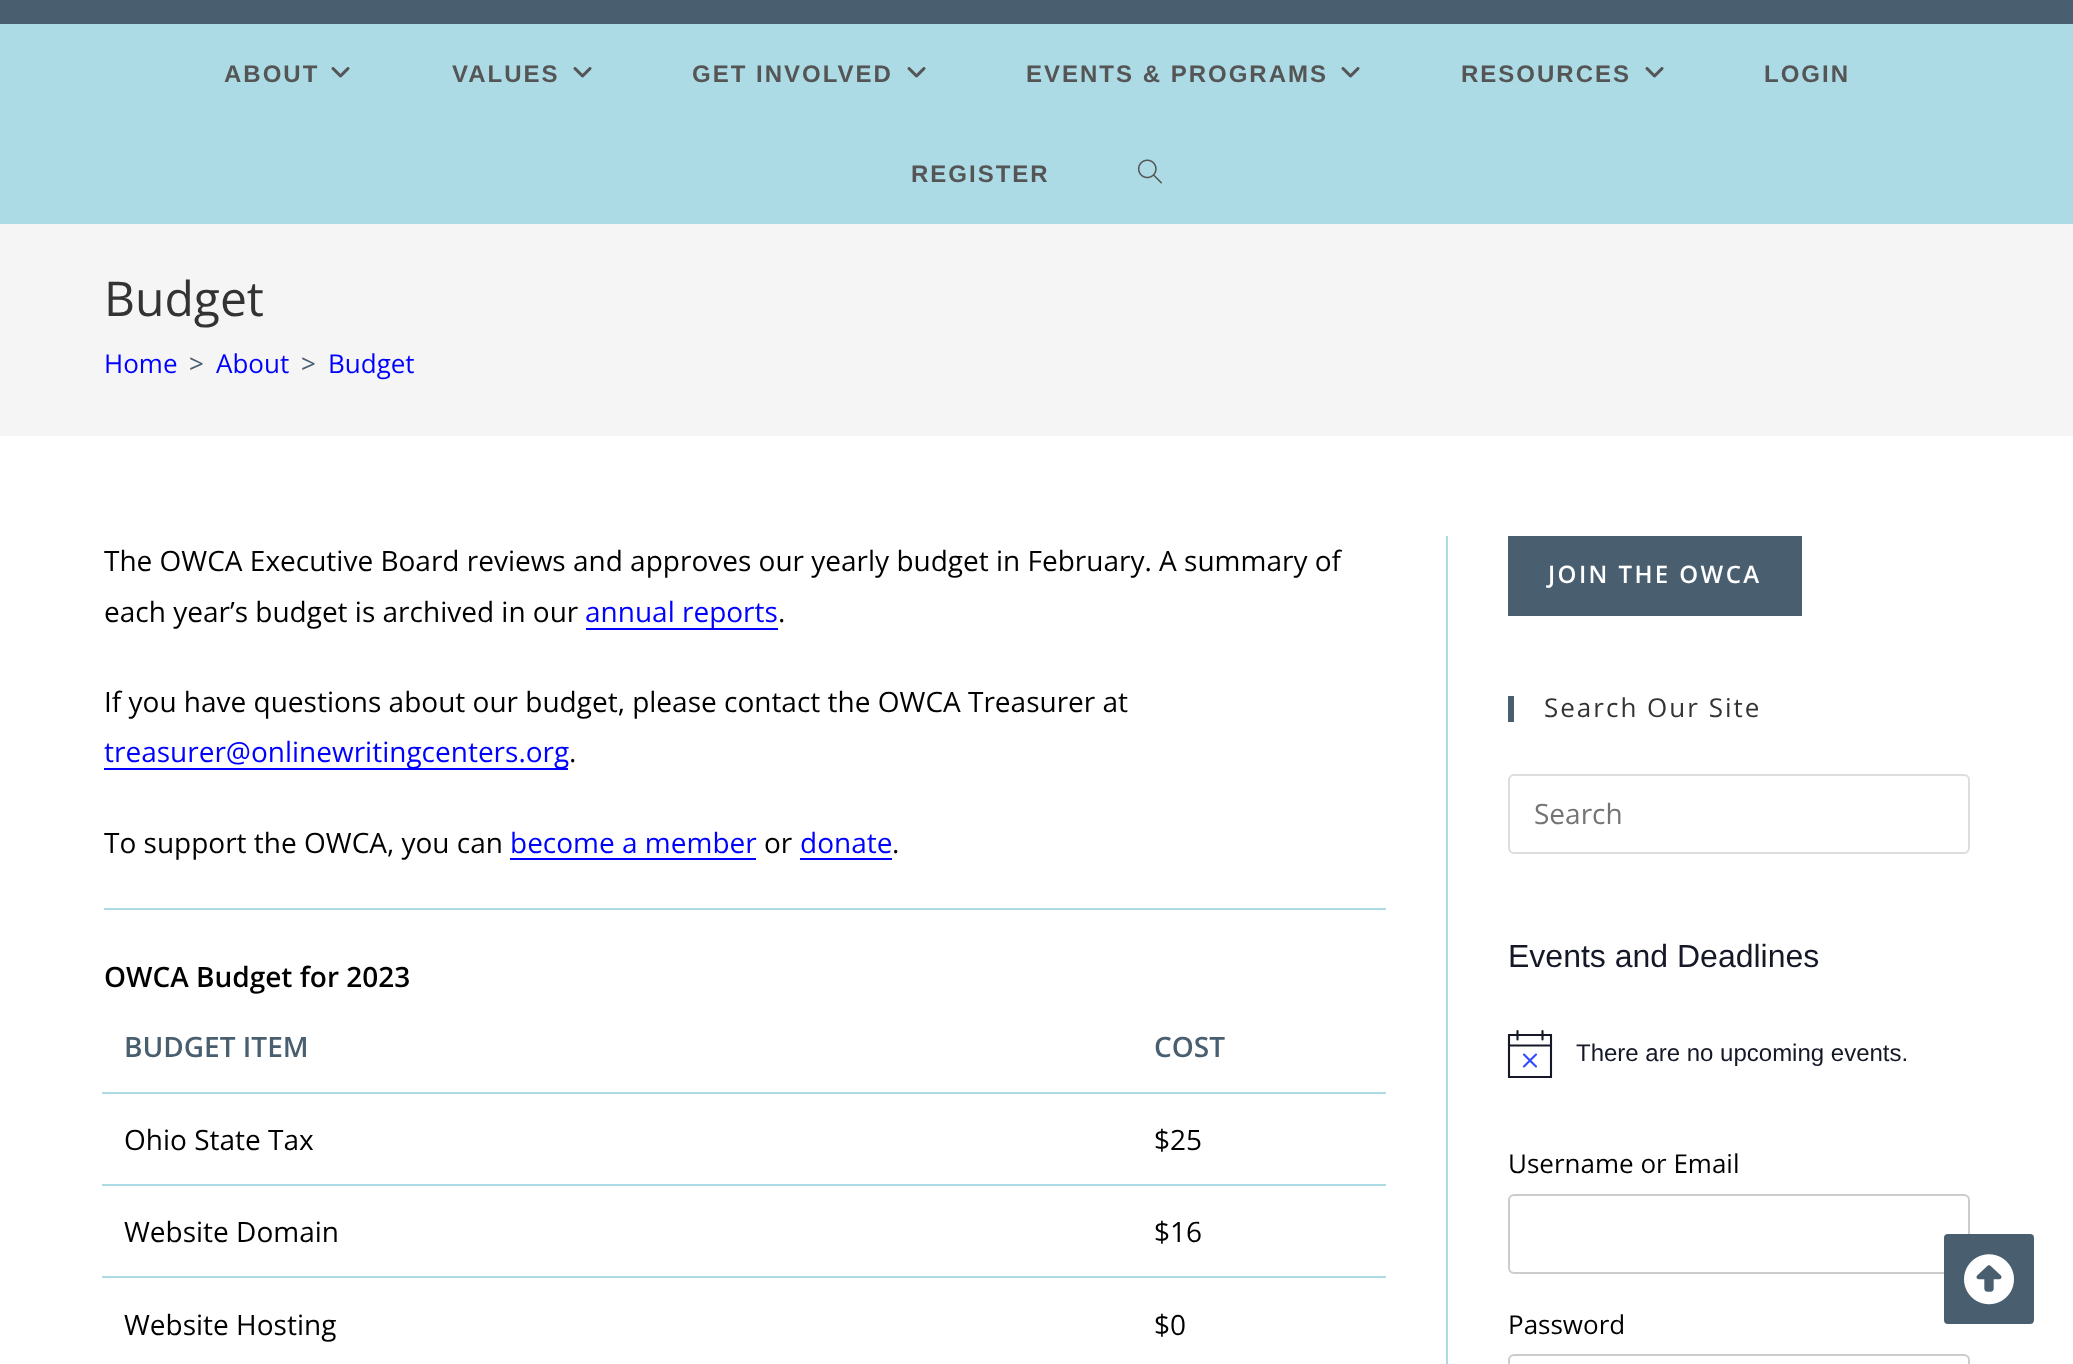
<svg xmlns="http://www.w3.org/2000/svg" width="2073" height="1364">
	<rect width="100%" height="100%" fill="#FFFFFF" />
	<rect x="0" y="0" width="2073" height="24" fill="#495F70" />
	<rect x="0" y="24" width="2073" height="200" fill="#ACDBE5" />
	<text x="224" y="82" font-family="Liberation Sans" font-size="24" font-weight="700" letter-spacing="2" fill="#555555">ABOUT</text>
	<image x="331" y="67" width="19" height="11" href="assets/img1.png" />
	<text x="452" y="82" font-family="Liberation Sans" font-size="24" font-weight="700" letter-spacing="2" fill="#555555">VALUES</text>
	<image x="573" y="67" width="19" height="11" href="assets/img1.png" />
	<text x="692" y="82" font-family="Liberation Sans" font-size="24" font-weight="700" letter-spacing="2" fill="#555555">GET INVOLVED</text>
	<image x="907" y="67" width="19" height="11" href="assets/img1.png" />
	<text x="1026" y="82" font-family="Liberation Sans" font-size="24" font-weight="700" letter-spacing="2" fill="#555555">EVENTS &amp; PROGRAMS</text>
	<image x="1341" y="67" width="19" height="11" href="assets/img1.png" />
	<text x="1461" y="82" font-family="Liberation Sans" font-size="24" font-weight="700" letter-spacing="2" fill="#555555">RESOURCES</text>
	<image x="1645" y="67" width="19" height="11" href="assets/img1.png" />
	<g font-family="Liberation Sans" font-size="24" font-weight="700" letter-spacing="2" fill="#555555">
		<text x="1764" y="82">LOGIN</text>
		<text x="911" y="182">REGISTER</text>
	</g>
	<image x="1137" y="159" width="25" height="25" href="assets/img2.png" />
	<rect x="0" y="224" width="2073" height="212" fill="#F5F5F5" />
	<text x="104" y="316" font-family="Open Sans" font-size="48" fill="#333333">Budget</text>
	<text x="104" y="373" font-family="Open Sans" font-size="26" fill="#0000FF">Home</text>
	<text x="189" y="373" font-family="Open Sans" font-size="26" fill="#495F70">&gt;</text>
	<text x="216" y="373" font-family="Open Sans" font-size="26" fill="#0000FF">About</text>
	<text x="301" y="373" font-family="Open Sans" font-size="26" fill="#495F70">&gt;</text>
	<text x="328" y="373" font-family="Open Sans" font-size="26" fill="#0000FF">Budget</text>
	<rect x="1446" y="536" width="2" height="828" fill="#ACDBE5" />
	<g font-family="Open Sans" font-size="28" fill="#000000">
		<text x="104" y="571">The OWCA Executive Board reviews and approves our yearly budget in February. A summary of</text>
		<text x="104" y="622">each year’s budget is archived in our</text>
	</g>
	<rect x="586" y="628" width="192" height="2" fill="#0000FF" />
	<text x="585" y="622" font-family="Open Sans" font-size="28" fill="#0000FF">annual reports</text>
	<g font-family="Open Sans" font-size="28" fill="#000000">
		<text x="778" y="622">.</text>
		<text x="104" y="712">If you have questions about our budget, please contact the OWCA Treasurer at</text>
	</g>
	<rect x="104" y="768" width="464" height="2" fill="#0000FF" />
	<text x="104" y="762" font-family="Open Sans" font-size="28" fill="#0000FF">treasurer@onlinewritingcenters.org</text>
	<g font-family="Open Sans" font-size="28" fill="#000000">
		<text x="569" y="762">.</text>
		<text x="104" y="853">To support the OWCA, you can</text>
	</g>
	<text x="510" y="853" font-family="Open Sans" font-size="28" fill="#0000FF">become a member</text>
	<rect x="510" y="858" width="246" height="2" fill="#0000FF" />
	<text x="764" y="853" font-family="Open Sans" font-size="28" fill="#000000">or</text>
	<text x="800" y="853" font-family="Open Sans" font-size="28" fill="#0000FF">donate</text>
	<rect x="800" y="858" width="92" height="2" fill="#0000FF" />
	<text x="892" y="853" font-family="Open Sans" font-size="28" fill="#000000">.</text>
	<rect x="104" y="908" width="1282" height="2" fill="#ACDBE5" />
	<text x="104" y="987" font-family="Open Sans" font-size="28" font-weight="600" fill="#000000">OWCA Budget for 2023</text>
	<text x="124" y="1057" font-family="Open Sans" font-size="28" font-weight="600" fill="#495F70">BUDGET ITEM</text>
	<rect x="102" y="1092" width="1284" height="2" fill="#ACDBE5" />
	<text x="1154" y="1057" font-family="Open Sans" font-size="28" font-weight="600" fill="#495F70">COST</text>
	<text x="124" y="1150" font-family="Open Sans" font-size="28" fill="#000000">Ohio State Tax</text>
	<rect x="102" y="1184" width="1284" height="2" fill="#ACDBE5" />
	<g font-family="Open Sans" font-size="28" fill="#000000">
		<text x="1154" y="1150">$25</text>
		<text x="124" y="1242">Website Domain</text>
	</g>
	<rect x="102" y="1276" width="1284" height="2" fill="#ACDBE5" />
	<g font-family="Open Sans" font-size="28" fill="#000000">
		<text x="1154" y="1242">$16</text>
		<text x="124" y="1335">Website Hosting</text>
		<text x="1154" y="1335">$0</text>
	</g>
	<rect x="1508" y="536" width="294" height="80" fill="#495F70" />
	<text x="1548" y="583" font-family="Open Sans" font-size="24" font-weight="600" letter-spacing="2.4" fill="#FFFFFF">JOIN THE OWCA</text>
	<rect x="1508" y="696" width="6" height="26" fill="#495F70" />
	<text x="1544" y="717" font-family="Open Sans" font-size="26" letter-spacing="2" fill="#333333">Search Our Site</text>
	<rect x="1509" y="775" width="460" height="78" rx="5" fill="none" stroke="#DDDDDD" stroke-width="2" />
	<text x="1534" y="824" font-family="Open Sans" font-size="28" fill="#757575">Search</text>
	<text x="1508" y="967" font-family="Liberation Sans" font-size="32" fill="#141827">Events and Deadlines</text>
	<path d="M1509 1035H1551V1077H1509Z" fill="none" stroke="#141827" stroke-width="2.1" />
	<path d="M1524 1054.5L1536 1066.5M1536 1054.5L1524 1066.5" fill="none" stroke="#334AFF" stroke-width="2.1" stroke-linecap="round" />
	<path d="M1517.5 1031V1039.5M1542.5 1031V1039.5" fill="none" stroke="#141827" stroke-width="2.1" stroke-linecap="round" />
	<path d="M1509 1045.5H1551" fill="none" stroke="#141827" stroke-width="2.1" stroke-linecap="square" />
	<text x="1576" y="1061" font-family="Liberation Sans" font-size="24" fill="#141827">There are no upcoming events.</text>
	<text x="1508" y="1173" font-family="Open Sans" font-size="26" fill="#000000">Username or Email</text>
	<rect x="1509" y="1195" width="460" height="78" rx="5" fill="none" stroke="#CCCCCC" stroke-width="2" />
	<text x="1508" y="1334" font-family="Open Sans" font-size="26" fill="#000000">Password</text>
	<rect x="1509" y="1355" width="460" height="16" rx="5" fill="none" stroke="#CCCCCC" stroke-width="2" />
	<rect x="1944" y="1234" width="90" height="90" rx="4" fill="#495F70" />
	<image x="1964" y="1254" width="50" height="51" href="assets/img3.png" />
</svg>
